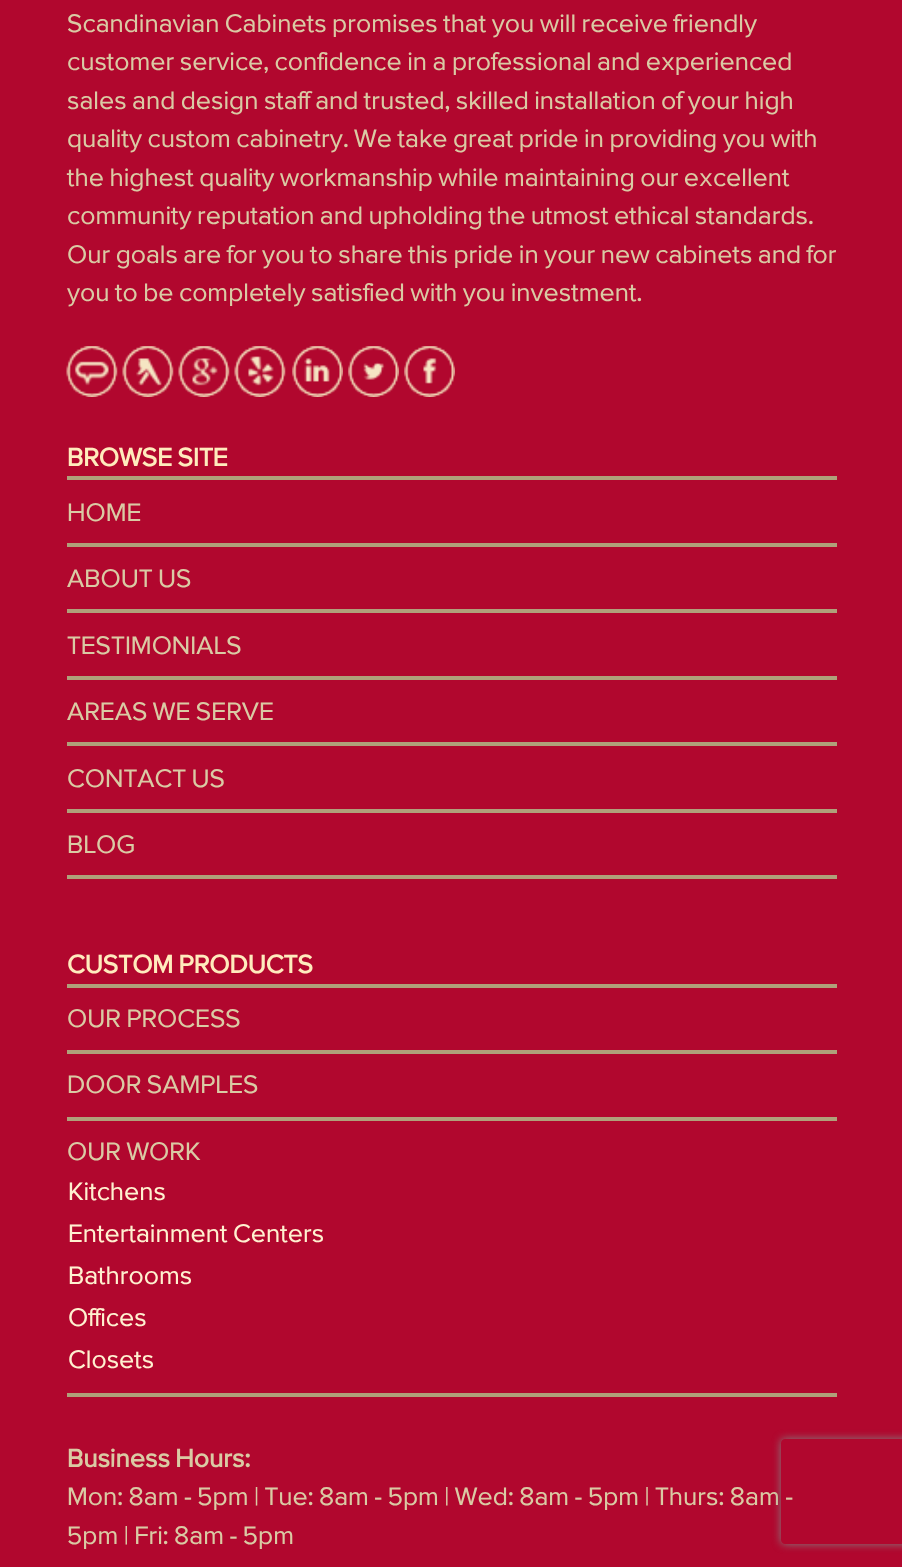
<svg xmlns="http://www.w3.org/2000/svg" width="902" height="1567">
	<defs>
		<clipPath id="clip1"><path d="M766 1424H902V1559H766ZM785 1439H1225C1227 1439 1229 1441 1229 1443V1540C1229 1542 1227 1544 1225 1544H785C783 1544 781 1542 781 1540V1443C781 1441 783 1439 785 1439Z" clip-rule="evenodd" /></clipPath>
	</defs>
	<rect width="100%" height="100%" fill="#B1072E" />
	<g font-family="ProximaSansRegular" font-size="26.25" fill="#DACAA4">
		<text x="67" y="32">Scandinavian Cabinets promises that you will receive friendly</text>
		<text x="67" y="70">customer service, confidence in a professional and experienced</text>
		<text x="67" y="109">sales and design staff and trusted, skilled installation of your high</text>
		<text x="67" y="147">quality custom cabinetry. We take great pride in providing you with</text>
		<text x="67" y="186">the highest quality workmanship while maintaining our excellent</text>
		<text x="67" y="224">community reputation and upholding the utmost ethical standards.</text>
		<text x="67" y="263">Our goals are for you to share this pride in your new cabinets and for</text>
		<text x="67" y="301">you to be completely satisfied with you investment.</text>
	</g>
	<image x="66" y="346" width="52" height="51" href="assets/img1.png" />
	<image x="122" y="346" width="52" height="51" href="assets/img2.png" />
	<image x="178" y="346" width="52" height="51" href="assets/img3.png" />
	<image x="234" y="346" width="52" height="51" href="assets/img4.png" />
	<image x="292" y="346" width="51" height="51" href="assets/img5.png" />
	<image x="348" y="346" width="51" height="51" href="assets/img6.png" />
	<image x="404" y="346" width="51" height="51" href="assets/img7.png" />
	<rect x="67" y="476" width="770" height="4" fill="#B0A07A" />
	<text x="67" y="466" font-family="ProximaSansRegular" font-size="26.25" font-weight="700" fill="#FFEBBD">BROWSE SITE</text>
	<rect x="67" y="543" width="770" height="4" fill="#B0A07A" />
	<text x="67" y="521" font-family="ProximaSansRegular" font-size="26.25" fill="#DACAA4">HOME</text>
	<rect x="67" y="609" width="770" height="4" fill="#B0A07A" />
	<text x="67" y="587" font-family="ProximaSansRegular" font-size="26.25" fill="#DACAA4">ABOUT US</text>
	<rect x="67" y="676" width="770" height="4" fill="#B0A07A" />
	<text x="67" y="654" font-family="ProximaSansRegular" font-size="26.25" fill="#DACAA4">TESTIMONIALS</text>
	<rect x="67" y="742" width="770" height="4" fill="#B0A07A" />
	<text x="67" y="720" font-family="ProximaSansRegular" font-size="26.25" fill="#DACAA4">AREAS WE SERVE</text>
	<rect x="67" y="809" width="770" height="4" fill="#B0A07A" />
	<text x="67" y="787" font-family="ProximaSansRegular" font-size="26.25" fill="#DACAA4">CONTACT US</text>
	<rect x="67" y="875" width="770" height="4" fill="#B0A07A" />
	<text x="67" y="853" font-family="ProximaSansRegular" font-size="26.25" fill="#DACAA4">BLOG</text>
	<rect x="67" y="984" width="770" height="4" fill="#B0A07A" />
	<text x="67" y="973" font-family="ProximaSansRegular" font-size="26.25" font-weight="700" fill="#FFEBBD">CUSTOM PRODUCTS</text>
	<rect x="67" y="1050" width="770" height="4" fill="#B0A07A" />
	<text x="67" y="1027" font-family="ProximaSansRegular" font-size="26.25" fill="#DACAA4">OUR PROCESS</text>
	<rect x="67" y="1117" width="770" height="4" fill="#B0A07A" />
	<text x="67" y="1093" font-family="ProximaSansRegular" font-size="26.25" fill="#DACAA4">DOOR SAMPLES</text>
	<rect x="67" y="1393" width="770" height="4" fill="#B0A07A" />
	<text x="67" y="1160" font-family="ProximaSansRegular" font-size="26.25" fill="#DACAA4">OUR WORK</text>
	<g font-family="ProximaSansRegular" font-size="26.25" fill="#FFF1D0">
		<text x="68" y="1200">Kitchens</text>
		<text x="68" y="1242">Entertainment Centers</text>
		<text x="68" y="1284">Bathrooms</text>
		<text x="68" y="1326">Offices</text>
		<text x="68" y="1368">Closets</text>
	</g>
	<text x="67" y="1467" font-family="ProximaSansRegular" font-size="26.25" font-weight="700" fill="#DACAA4">Business Hours:</text>
	<g font-family="ProximaSansRegular" font-size="26.25" fill="#DACAA4">
		<text x="67" y="1505">Mon: 8am - 5pm | Tue: 8am - 5pm | Wed: 8am - 5pm | Thurs: 8am -</text>
		<text x="67" y="1544">5pm | Fri: 8am - 5pm</text>
	</g>
	<g clip-path="url(#clip1)">
		<rect x="781" y="1439" width="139" height="105" rx="4" fill="#808080" filter="blur(4.5px)" />
	</g>
</svg>
